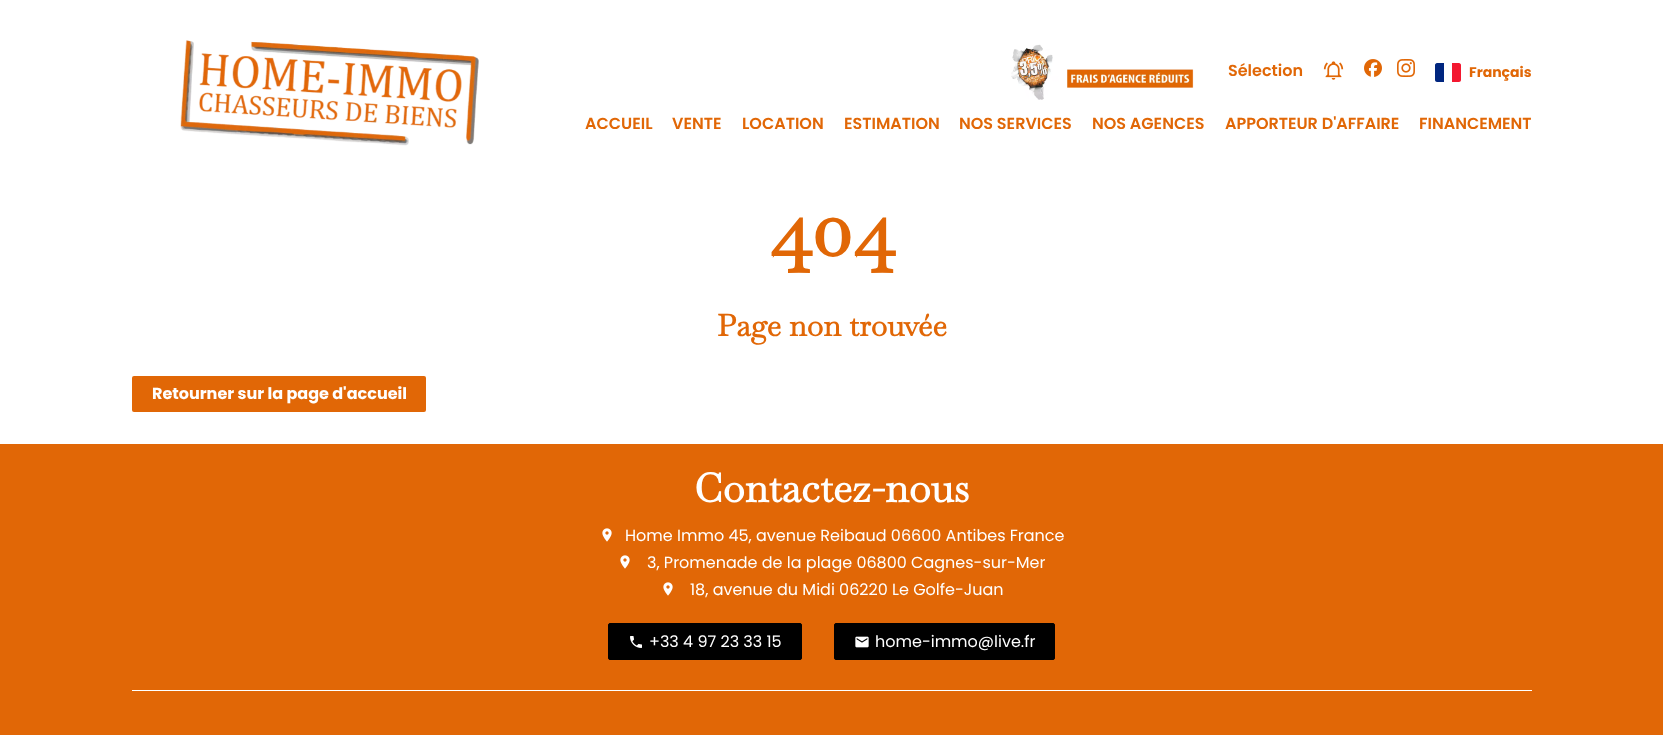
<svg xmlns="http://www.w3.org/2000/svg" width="1663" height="735">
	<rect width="100%" height="100%" fill="#FFFFFF" />
	<image x="180" y="40" width="299" height="106" href="assets/img1.png" />
	<image x="1011" y="44" width="183" height="56" href="assets/img2.png" />
	<text x="1228" y="76" font-family="Poppins" font-size="16" font-weight="600" fill="#E16706">Sélection</text>
	<image x="1323" y="61" width="21" height="19" href="assets/img3.png" />
	<image x="1364" y="59" width="18" height="18" href="assets/img4.png" />
	<image x="1397" y="59" width="18" height="18" href="assets/img5.png" />
	<path d="M1437 63H1444V82H1437C1436 82 1435 81 1435 80V65C1435 64 1436 63 1437 63Z" fill="#00267F" />
	<path d="M1452 63H1459C1460 63 1461 64 1461 65V80C1461 81 1460 82 1459 82H1452Z" fill="#F31830" />
	<text x="1469" y="77" font-family="Poppins" font-size="14" font-weight="700" fill="#E16706">Français</text>
	<g font-family="Poppins" font-size="16" font-weight="600" fill="#E16706">
		<text x="585" y="129">ACCUEIL</text>
		<text x="672" y="129">VENTE</text>
		<text x="742" y="129">LOCATION</text>
		<text x="844" y="129">ESTIMATION</text>
		<text x="959" y="129">NOS SERVICES</text>
		<text x="1092" y="129">NOS AGENCES</text>
		<text x="1225" y="129">APPORTEUR D'AFFAIRE</text>
		<text x="1419" y="129">FINANCEMENT</text>
	</g>
	<text x="768" y="256" font-family="Baskervville" font-size="80" font-weight="700" fill="#E16706">404</text>
	<text x="717" y="336" font-family="Baskervville" font-size="30" font-weight="700" fill="#E16706">Page non trouvée</text>
	<rect x="132" y="376" width="294" height="36" rx="2" fill="#E16706" />
	<text x="152" y="399" font-family="Poppins" font-size="16" font-weight="700" fill="#FFFFFF">Retourner sur la page d'accueil</text>
	<rect x="0" y="444" width="1663" height="291" fill="#E16706" />
	<text x="694" y="502" font-family="Baskervville" font-size="40" font-weight="700" fill="#FFFFFF">Contactez-nous</text>
	<image x="602" y="528" width="10" height="14" href="assets/img6.png" />
	<text x="625" y="541" font-family="Poppins" font-size="16" fill="#FFFFFF">Home Immo 45, avenue Reibaud 06600 Antibes France</text>
	<image x="620" y="555" width="10" height="14" href="assets/img6.png" />
	<text x="647" y="568" font-family="Poppins" font-size="16" fill="#FFFFFF">3, Promenade de la plage 06800 Cagnes-sur-Mer</text>
	<image x="663" y="582" width="10" height="14" href="assets/img6.png" />
	<text x="690" y="595" font-family="Poppins" font-size="16" fill="#FFFFFF">18, avenue du Midi 06220 Le Golfe-Juan</text>
	<rect x="608.5" y="623.5" width="193" height="36" rx="1.5" fill="#000000" stroke="#000000" />
	<image x="630" y="636" width="12" height="12" href="assets/img7.png" />
	<text x="649" y="647" font-family="Poppins" font-size="16" fill="#FFFFFF">+33 4 97 23 33 15</text>
	<rect x="834.5" y="623.5" width="220" height="36" rx="1.5" fill="#000000" stroke="#000000" />
	<image x="855" y="636" width="14" height="12" href="assets/img8.png" />
	<text x="875" y="647" font-family="Poppins" font-size="16" fill="#FFFFFF">home-immo@live.fr</text>
	<rect x="132" y="690" width="1400" height="1" fill="#FFFFFF" />
</svg>
